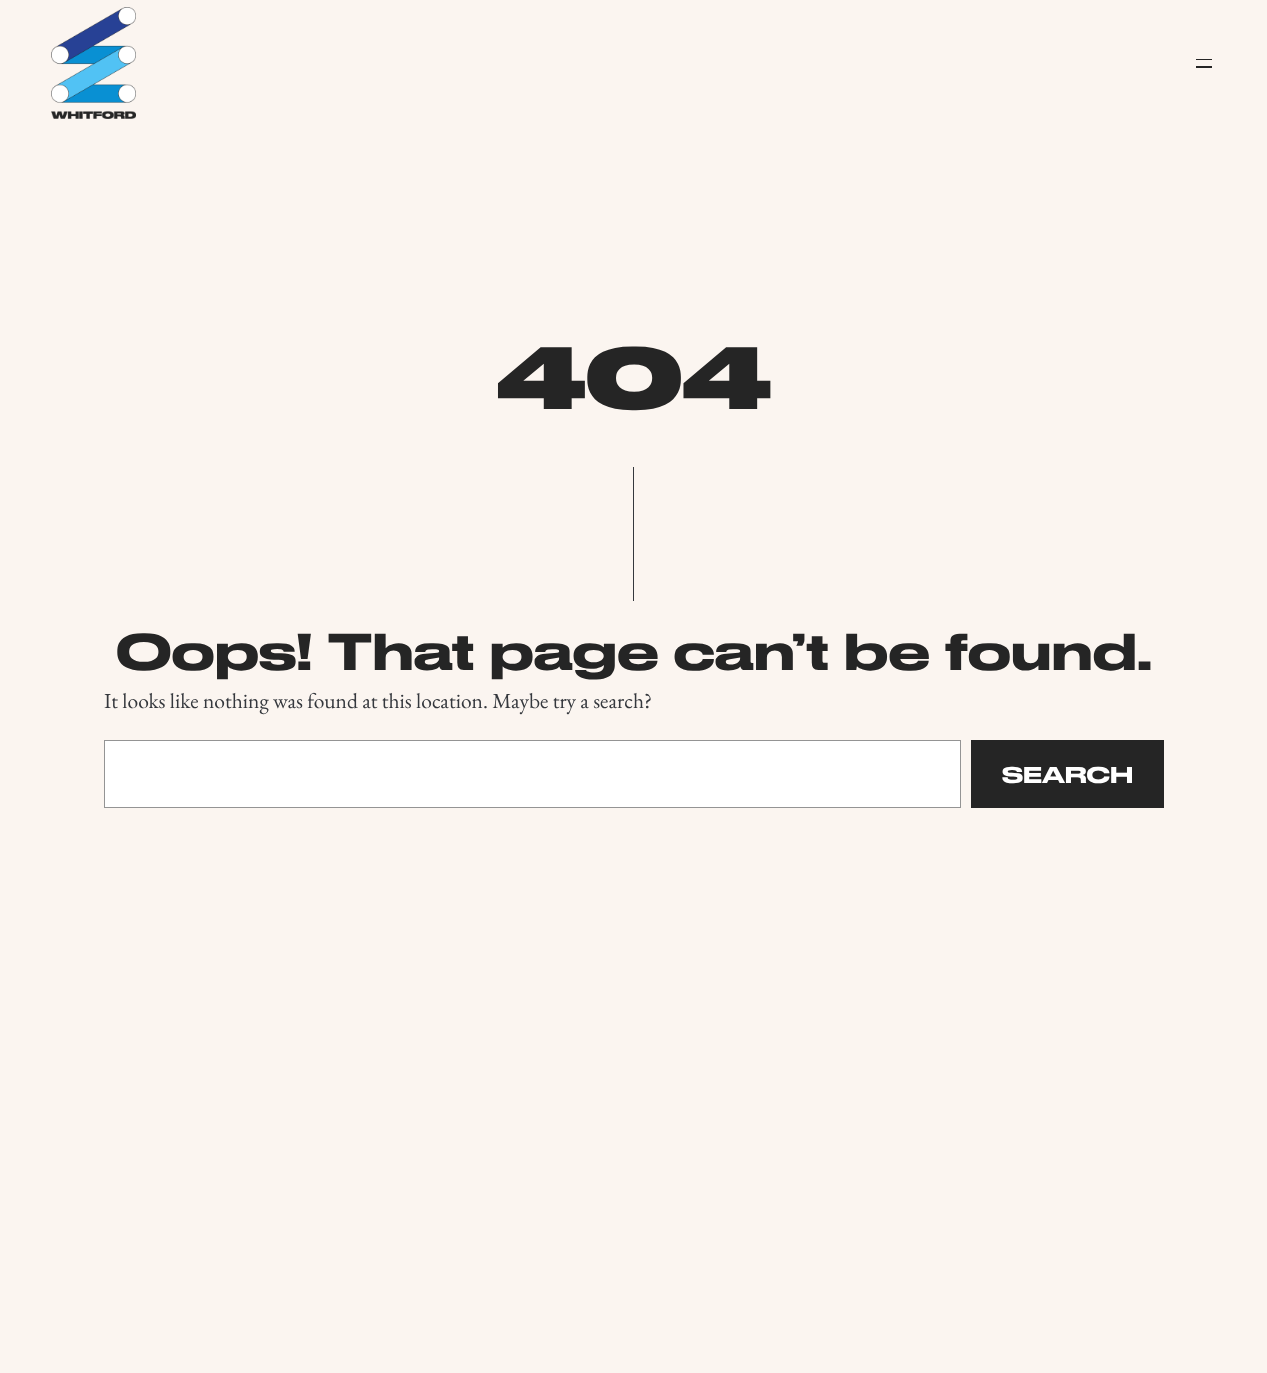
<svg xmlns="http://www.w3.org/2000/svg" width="1267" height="1373">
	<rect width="100%" height="100%" fill="#FBF5F0" />
	<image x="51" y="7" width="85" height="112" href="assets/img1.png" />
	<rect x="1196" y="59" width="16" height="1" fill="#252525" />
	<rect x="1196" y="66" width="16" height="2" fill="#252525" />
	<text x="497" y="409" font-family="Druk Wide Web" font-size="82.5" font-weight="900" fill="#252525">404</text>
	<rect x="633" y="467" width="1" height="134" fill="#35383D" />
	<text x="116" y="670" font-family="Druk Wide Web" font-size="48.6" font-weight="500" fill="#252525">Oops! That page can’t be found.</text>
	<text x="104" y="708" font-family="EB Garamond" font-size="21.5" fill="#35383D">It looks like nothing was found at this location. Maybe try a search?</text>
	<rect x="104.5" y="740.5" width="856" height="67" fill="#FFFFFF" stroke="#949494" />
	<rect x="971" y="740" width="193" height="68" fill="#252525" />
	<text x="1002" y="783" font-family="Druk Wide Web" font-size="21.5" font-weight="500" fill="#FFFFFF">SEARCH</text>
</svg>
